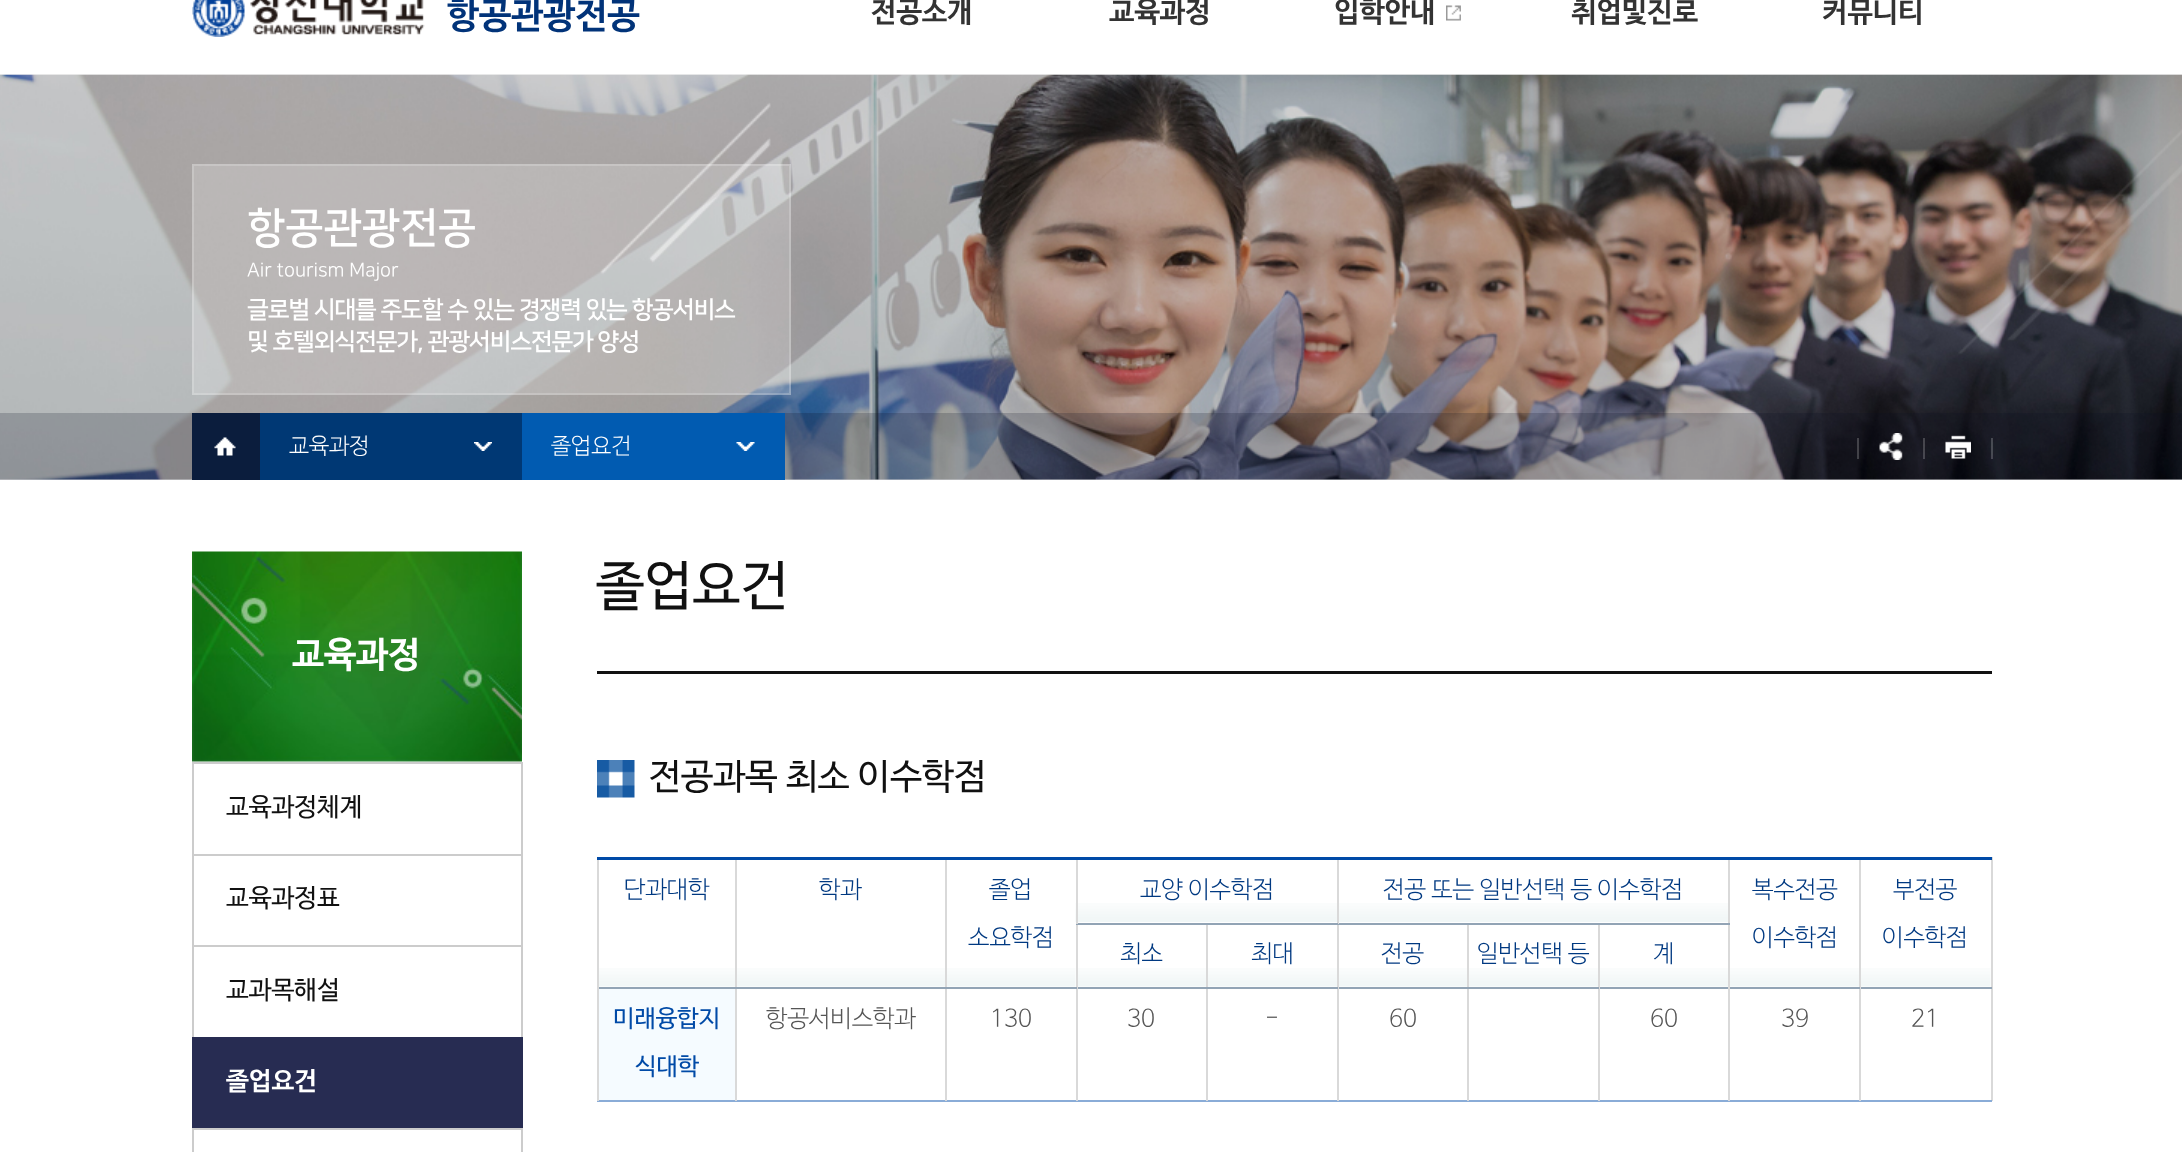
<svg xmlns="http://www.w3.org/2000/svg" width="2182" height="1152">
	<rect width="100%" height="100%" fill="#FFFFFF" />
	<rect x="0" y="74" width="2182" height="1" fill="#F2F2F2" />
	<image x="192" y="0" width="233" height="37" href="assets/img1.png" />
	<text x="447" y="27" font-family="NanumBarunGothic" font-size="36" font-weight="700" fill="#013379">항공관광전공</text>
	<g font-family="NanumBarunGothic" font-size="28.5" font-weight="700" fill="#333333">
		<text x="871" y="21">전공소개</text>
		<text x="1109" y="21">교육과정</text>
		<text x="1334" y="21">입학안내</text>
	</g>
	<image x="1446" y="5" width="15" height="16" href="assets/img2.png" />
	<g font-family="NanumBarunGothic" font-size="28.5" font-weight="700" fill="#333333">
		<text x="1571" y="21">취업및진로</text>
		<text x="1822" y="21">커뮤니티</text>
	</g>
	<image x="0" y="74" width="2182" height="406" href="assets/img3.png" />
	<rect x="192" y="164" width="599" height="231" fill="#FFFFFF" fill-opacity="0.2" />
	<rect x="193" y="165" width="597" height="229" fill="none" stroke="#FFFFFF" stroke-opacity="0.2" stroke-width="2" />
	<text x="247" y="241" font-family="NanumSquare" font-size="42" font-weight="700" fill="#FFFFFF">항공관광전공</text>
	<text x="247" y="276" font-family="NanumSquare" font-size="19.25" fill="#FFFFFF">Air tourism Major</text>
	<g font-family="NanumSquare" font-size="24" font-weight="700" letter-spacing="-1.2" fill="#FFFFFF">
		<text x="247" y="317">글로벌 시대를 주도할 수 있는 경쟁력 있는 항공서비스</text>
		<text x="247" y="349">및 호텔외식전문가, 관광서비스전문가 양성</text>
	</g>
	<rect x="0" y="413" width="2182" height="67" fill="#081123" fill-opacity="0.2" />
	<rect x="192" y="413" width="68" height="67" fill="#0B1D3D" />
	<image x="214" y="437" width="22" height="19" href="assets/img4.png" />
	<rect x="260" y="413" width="262" height="67" fill="#003874" />
	<text x="289" y="453" font-family="NanumBarunGothic" font-size="22.5" font-weight="300" fill="#FFFFFF">교육과정</text>
	<image x="474" y="442" width="18" height="9" href="assets/img5.png" />
	<rect x="522" y="413" width="263" height="67" fill="#015BB1" />
	<text x="551" y="453" font-family="NanumBarunGothic" font-size="22.5" font-weight="300" fill="#FFFFFF">졸업요건</text>
	<image x="736" y="442" width="19" height="9" href="assets/img6.png" />
	<rect x="1857" y="438" width="2" height="21" fill="#FFFFFF" fill-opacity="0.2" />
	<image x="1879" y="433" width="24" height="27" href="assets/img7.png" />
	<rect x="1923" y="438" width="2" height="21" fill="#FFFFFF" fill-opacity="0.2" />
	<image x="1945" y="435" width="26" height="24" href="assets/img8.png" />
	<rect x="1991" y="438" width="2" height="21" fill="#FFFFFF" fill-opacity="0.2" />
	<image x="192" y="551" width="330" height="211" href="assets/img9.png" />
	<text x="292" y="666" font-family="NanumBarunGothic" font-size="36" font-weight="700" fill="#FFFFFF">교육과정</text>
	<rect x="192" y="762" width="330" height="2" fill="#CCCCCC" />
	<rect x="521" y="762" width="2" height="92" fill="#CCCCCC" />
	<rect x="192" y="762" width="2" height="92" fill="#CCCCCC" />
	<text x="226" y="815" font-family="NanumBarunGothic" font-size="25.5" fill="#111111">교육과정체계</text>
	<rect x="192" y="854" width="330" height="2" fill="#CCCCCC" />
	<rect x="521" y="854" width="2" height="91" fill="#CCCCCC" />
	<rect x="192" y="854" width="2" height="91" fill="#CCCCCC" />
	<text x="226" y="906" font-family="NanumBarunGothic" font-size="25.5" fill="#111111">교육과정표</text>
	<rect x="192" y="945" width="330" height="2" fill="#CCCCCC" />
	<rect x="521" y="945" width="2" height="92" fill="#CCCCCC" />
	<rect x="192" y="945" width="2" height="92" fill="#CCCCCC" />
	<text x="226" y="998" font-family="NanumBarunGothic" font-size="25.5" fill="#111111">교과목해설</text>
	<rect x="194" y="1039" width="327" height="89" fill="#272C52" />
	<rect x="192" y="1037" width="330" height="2" fill="#272C52" />
	<rect x="521" y="1037" width="2" height="91" fill="#272C52" />
	<rect x="192" y="1037" width="2" height="91" fill="#272C52" />
	<text x="226" y="1089" font-family="NanumBarunGothic" font-size="25.5" font-weight="700" fill="#FFFFFF">졸업요건</text>
	<rect x="192" y="1128" width="330" height="2" fill="#CCCCCC" />
	<rect x="521" y="1128" width="2" height="24" fill="#CCCCCC" />
	<rect x="192" y="1128" width="2" height="24" fill="#CCCCCC" />
	<rect x="597" y="671" width="1395" height="3" fill="#111111" />
	<text x="596" y="603" font-family="NanumBarunGothic" font-size="54" fill="#111111">졸업요건</text>
	<image x="597" y="760" width="38" height="38" href="assets/img10.png" />
	<text x="649" y="788" font-family="NanumBarunGothic" font-size="36" fill="#111111">전공과목 최소 이수학점</text>
	<rect x="1991" y="857" width="2" height="244" fill="#D9D9D9" />
	<rect x="597" y="1100" width="1395" height="2" fill="#8AACD7" />
	<rect x="1598" y="987" width="2" height="114" fill="#D9D9D9" />
	<rect x="1728" y="987" width="2" height="114" fill="#D9D9D9" />
	<rect x="1598" y="987" width="132" height="2" fill="#92A4B5" />
	<rect x="1598" y="923" width="2" height="66" fill="#D9D9D9" />
	<rect x="1467" y="987" width="2" height="114" fill="#D9D9D9" />
	<rect x="1467" y="987" width="132" height="2" fill="#92A4B5" />
	<rect x="1467" y="923" width="2" height="66" fill="#D9D9D9" />
	<rect x="1337" y="987" width="2" height="114" fill="#D9D9D9" />
	<rect x="1337" y="987" width="132" height="2" fill="#92A4B5" />
	<rect x="1337" y="923" width="2" height="66" fill="#D9D9D9" />
	<rect x="1206" y="987" width="2" height="114" fill="#D9D9D9" />
	<rect x="1206" y="987" width="132" height="2" fill="#92A4B5" />
	<rect x="1206" y="923" width="2" height="66" fill="#D9D9D9" />
	<rect x="1076" y="987" width="2" height="114" fill="#D9D9D9" />
	<rect x="1076" y="987" width="132" height="2" fill="#92A4B5" />
	<rect x="1076" y="923" width="2" height="66" fill="#D9D9D9" />
	<rect x="945" y="987" width="2" height="114" fill="#D9D9D9" />
	<rect x="945" y="987" width="132" height="2" fill="#92A4B5" />
	<rect x="945" y="857" width="2" height="132" fill="#D9D9D9" />
	<rect x="735" y="987" width="2" height="114" fill="#D9D9D9" />
	<rect x="735" y="987" width="212" height="2" fill="#92A4B5" />
	<rect x="735" y="857" width="2" height="132" fill="#D9D9D9" />
	<rect x="597" y="987" width="2" height="114" fill="#D9D9D9" />
	<rect x="597" y="987" width="140" height="2" fill="#92A4B5" />
	<rect x="597" y="857" width="2" height="132" fill="#D9D9D9" />
	<image x="1075" y="903" width="262" height="19" href="assets/img14.png" />
	<rect x="1859" y="987" width="2" height="114" fill="#D9D9D9" />
	<rect x="1859" y="987" width="133" height="2" fill="#92A4B5" />
	<rect x="1859" y="857" width="2" height="132" fill="#D9D9D9" />
	<rect x="1728" y="987" width="132" height="2" fill="#92A4B5" />
	<rect x="1728" y="857" width="2" height="132" fill="#D9D9D9" />
	<rect x="1337" y="923" width="393" height="2" fill="#92A4B5" />
	<rect x="1337" y="857" width="2" height="67" fill="#D9D9D9" />
	<rect x="1076" y="923" width="262" height="2" fill="#92A4B5" />
	<rect x="1076" y="857" width="2" height="67" fill="#D9D9D9" />
	<rect x="597" y="857" width="1395" height="3" fill="#004AA7" />
	<image x="599" y="968" width="136" height="19" href="assets/img11.png" />
	<text x="624" y="897" font-family="NanumBarunGothic" font-size="24" font-weight="300" fill="#003981">단과대학</text>
	<image x="737" y="968" width="208" height="19" href="assets/img12.png" />
	<text x="819" y="897" font-family="NanumBarunGothic" font-size="24" font-weight="300" fill="#003981">학과</text>
	<image x="947" y="968" width="129" height="19" href="assets/img13.png" />
	<g font-family="NanumBarunGothic" font-size="24" font-weight="300" fill="#003981">
		<text x="989" y="897">졸업</text>
		<text x="968" y="945">소요학점</text>
		<text x="1140" y="897">교양 이수학점</text>
	</g>
	<image x="1339" y="903" width="389" height="19" href="assets/img15.png" />
	<text x="1383" y="897" font-family="NanumBarunGothic" font-size="24" font-weight="300" fill="#003981">전공 또는 일반선택 등 이수학점</text>
	<image x="1730" y="968" width="129" height="19" href="assets/img16.png" />
	<g font-family="NanumBarunGothic" font-size="24" font-weight="300" fill="#003981">
		<text x="1752" y="897">복수전공</text>
		<text x="1752" y="945">이수학점</text>
	</g>
	<image x="1861" y="968" width="130" height="19" href="assets/img17.png" />
	<g font-family="NanumBarunGothic" font-size="24" font-weight="300" fill="#003981">
		<text x="1893" y="897">부전공</text>
		<text x="1882" y="945">이수학점</text>
	</g>
	<image x="1078" y="968" width="128" height="19" href="assets/img18.png" />
	<text x="1120" y="961" font-family="NanumBarunGothic" font-size="24" font-weight="300" fill="#003981">최소</text>
	<image x="1208" y="968" width="129" height="19" href="assets/img16.png" />
	<text x="1251" y="961" font-family="NanumBarunGothic" font-size="24" font-weight="300" fill="#003981">최대</text>
	<image x="1339" y="968" width="128" height="19" href="assets/img18.png" />
	<text x="1381" y="961" font-family="NanumBarunGothic" font-size="24" font-weight="300" fill="#003981">전공</text>
	<image x="1469" y="968" width="129" height="19" href="assets/img16.png" />
	<text x="1477" y="961" font-family="NanumBarunGothic" font-size="24" font-weight="300" fill="#003981">일반선택 등</text>
	<image x="1600" y="968" width="128" height="19" href="assets/img18.png" />
	<text x="1653" y="961" font-family="NanumBarunGothic" font-size="24" font-weight="300" fill="#003981">계</text>
	<rect x="599" y="989" width="136" height="111" fill="#F5FBFF" />
	<g font-family="NanumBarunGothic" font-size="24" fill="#004AA7">
		<text x="613" y="1026">미래융합지</text>
		<text x="635" y="1074">식대학</text>
	</g>
	<g font-family="NanumBarunGothic" font-size="24" font-weight="300" fill="#555555">
		<text x="766" y="1026">항공서비스학과</text>
		<text x="990" y="1026">130</text>
		<text x="1127" y="1026">30</text>
		<text x="1265" y="1026">-</text>
		<text x="1389" y="1026">60</text>
		<text x="1650" y="1026">60</text>
		<text x="1781" y="1026">39</text>
		<text x="1911" y="1026">21</text>
	</g>
</svg>
